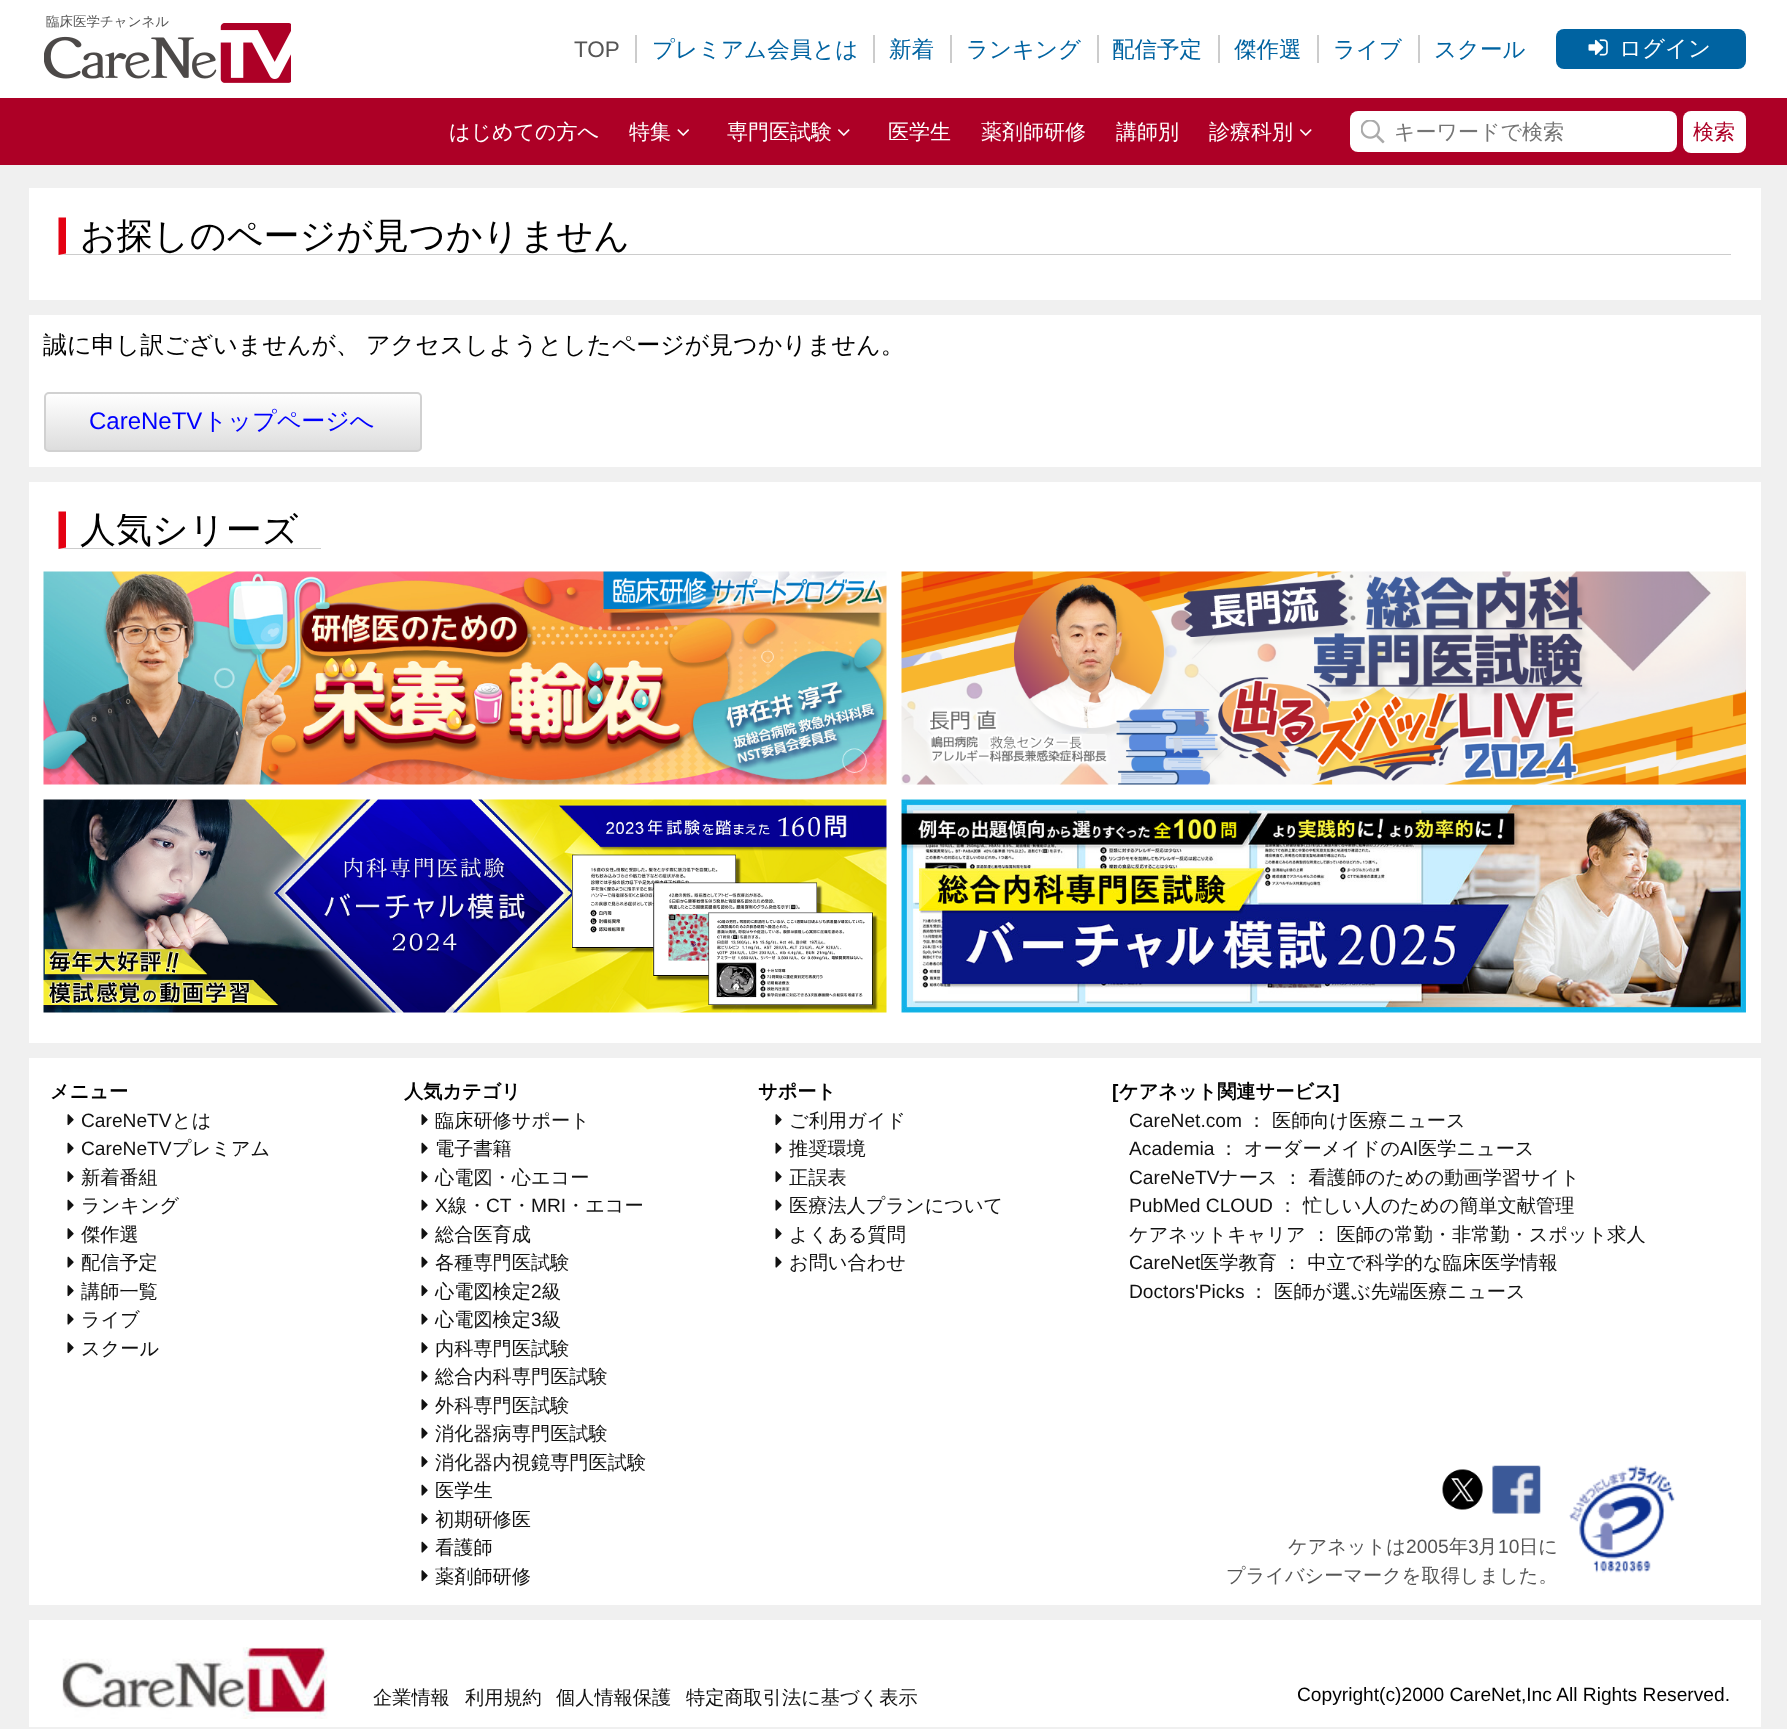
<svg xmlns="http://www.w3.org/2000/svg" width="1787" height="1729">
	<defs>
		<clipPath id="clip1"><rect x="44" y="392" width="378" height="60" rx="5" /></clipPath>
		<linearGradient id="g1" gradientUnits="userSpaceOnUse" x1="45" y1="393" x2="45" y2="450"><stop offset="0" stop-color="#FFFFFF" /><stop offset="1" stop-color="#DDDDDD" /></linearGradient>
	</defs>
	<rect width="100%" height="100%" fill="#F0F0F0" />
	<rect x="0" y="0" width="1787" height="98" fill="#FFFFFF" />
	<image x="44" y="23" width="247" height="60" href="assets/img1.png" />
	<text x="46" y="26" font-family="WenQuanYi Zen Hei" font-size="13.5" font-weight="500" fill="#555555">臨床医学チャンネル</text>
	<text x="574" y="57" font-family="Liberation Sans" font-size="22.5" fill="#555555">TOP</text>
	<rect x="635" y="35" width="2" height="28" fill="#CCCCCC" />
	<text x="652" y="57" font-family="WenQuanYi Zen Hei" font-size="22.5" font-weight="500" fill="#0063A1">プレミアム会員とは</text>
	<rect x="873" y="35" width="2" height="28" fill="#CCCCCC" />
	<text x="889" y="57" font-family="WenQuanYi Zen Hei" font-size="22.5" font-weight="500" fill="#0063A1">新着</text>
	<rect x="950" y="35" width="2" height="28" fill="#CCCCCC" />
	<text x="966" y="57" font-family="WenQuanYi Zen Hei" font-size="22.5" font-weight="500" fill="#0063A1">ランキング</text>
	<rect x="1097" y="35" width="2" height="28" fill="#CCCCCC" />
	<text x="1112" y="57" font-family="WenQuanYi Zen Hei" font-size="22.5" font-weight="500" fill="#0063A1">配信予定</text>
	<rect x="1218" y="35" width="2" height="28" fill="#CCCCCC" />
	<text x="1234" y="57" font-family="WenQuanYi Zen Hei" font-size="22.5" font-weight="500" fill="#0063A1">傑作選</text>
	<rect x="1317" y="35" width="2" height="28" fill="#CCCCCC" />
	<text x="1333" y="57" font-family="WenQuanYi Zen Hei" font-size="22.5" font-weight="500" fill="#0063A1">ライブ</text>
	<rect x="1418" y="35" width="2" height="28" fill="#CCCCCC" />
	<text x="1434" y="57" font-family="WenQuanYi Zen Hei" font-size="22.5" font-weight="500" fill="#0063A1">スクール</text>
	<rect x="1556" y="29" width="190" height="40" rx="8" fill="#0063A1" />
	<image x="1588" y="39" width="20" height="17" href="assets/img2.png" />
	<text x="1619" y="56" font-family="WenQuanYi Zen Hei" font-size="22.5" font-weight="500" fill="#FFFFFF">ログイン</text>
	<rect x="0" y="98" width="1787" height="67" fill="#AD0026" />
	<g font-family="WenQuanYi Zen Hei" font-size="21" font-weight="500" fill="#FFFFFF">
		<text x="449" y="139">はじめての方へ</text>
		<text x="629" y="139">特集</text>
	</g>
	<image x="677" y="129" width="12" height="7" href="assets/img3.png" />
	<text x="727" y="139" font-family="WenQuanYi Zen Hei" font-size="21" font-weight="500" fill="#FFFFFF">専門医試験</text>
	<image x="838" y="129" width="12" height="7" href="assets/img4.png" />
	<g font-family="WenQuanYi Zen Hei" font-size="21" font-weight="500" fill="#FFFFFF">
		<text x="888" y="139">医学生</text>
		<text x="981" y="139">薬剤師研修</text>
		<text x="1116" y="139">講師別</text>
		<text x="1209" y="139">診療科別</text>
	</g>
	<image x="1300" y="129" width="12" height="7" href="assets/img4.png" />
	<rect x="1350" y="111" width="327" height="41" rx="8" fill="#FFFFFF" />
	<image x="1361" y="120" width="24" height="24" href="assets/img5.png" />
	<text x="1394" y="139" font-family="WenQuanYi Zen Hei" font-size="21" font-weight="500" fill="#757575">キーワードで検索</text>
	<rect x="1683" y="111" width="63" height="42" rx="8" fill="#FFFFFF" />
	<text x="1693" y="139" font-family="WenQuanYi Zen Hei" font-size="21" font-weight="500" fill="#AD0026">検索</text>
	<rect x="29" y="188" width="1732" height="112" fill="#FFFFFF" />
	<path d="M1731 255H58L66 254H1731Z" fill="#CCCCCC" />
	<path d="M58.5 255V217.5H66V253.5Z" fill="#E40112" />
	<text x="80" y="248" font-family="WenQuanYi Zen Hei" font-size="36" font-weight="500" fill="#000000">お探しのページが見つかりません</text>
	<rect x="29" y="315" width="1732" height="152" fill="#FFFFFF" />
	<g font-family="WenQuanYi Zen Hei" font-size="24" font-weight="500" fill="#000000">
		<text x="43" y="353">誠に申し訳ございませんが、</text>
		<text x="366" y="353">アクセスしようとしたページが見つかりません。</text>
	</g>
	<g clip-path="url(#clip1)">
		<rect x="44" y="393" width="378" height="57" fill="url(#g1)" />
	</g>
	<rect x="45" y="393" width="376" height="58" rx="4" fill="none" stroke="#D1D1D1" stroke-width="2" />
	<text x="89" y="429" font-family="Liberation Sans" font-size="24" fill="#0000FF">CareNeTV</text>
	<text x="203" y="429" font-family="WenQuanYi Zen Hei" font-size="24" font-weight="500" fill="#0000FF">トップページへ</text>
	<rect x="29" y="482" width="1732" height="561" fill="#FFFFFF" />
	<path d="M321 549H58L66 548H321Z" fill="#CCCCCC" />
	<path d="M58.5 549V511.5H66V547.5Z" fill="#E40112" />
	<text x="80" y="542" font-family="WenQuanYi Zen Hei" font-size="36" font-weight="500" fill="#000000">人気シリーズ</text>
	<image x="43" y="571" width="844" height="214" href="assets/img6.png" />
	<image x="901" y="571" width="845" height="214" href="assets/img7.png" />
	<image x="43" y="799" width="844" height="214" href="assets/img8.png" />
	<image x="901" y="799" width="845" height="214" href="assets/img9.png" />
	<rect x="29" y="1058" width="1732" height="547" fill="#FFFFFF" />
	<text x="50" y="1098" font-family="WenQuanYi Zen Hei" font-size="19.2" font-weight="700" fill="#000000">メニュー</text>
	<image x="67" y="1114" width="7" height="12" href="assets/img10.png" />
	<text x="81" y="1127" font-family="Liberation Sans" font-size="19.2" fill="#111111">CareNeTV</text>
	<text x="172" y="1127" font-family="WenQuanYi Zen Hei" font-size="19.2" font-weight="500" fill="#111111">とは</text>
	<image x="67" y="1142" width="7" height="12" href="assets/img11.png" />
	<text x="81" y="1155" font-family="Liberation Sans" font-size="19.2" fill="#111111">CareNeTV</text>
	<text x="172" y="1155" font-family="WenQuanYi Zen Hei" font-size="19.2" font-weight="500" fill="#111111">プレミアム</text>
	<image x="67" y="1171" width="7" height="12" href="assets/img10.png" />
	<text x="81" y="1184" font-family="WenQuanYi Zen Hei" font-size="19.2" font-weight="500" fill="#111111">新着番組</text>
	<image x="67" y="1199" width="7" height="12" href="assets/img11.png" />
	<text x="81" y="1212" font-family="WenQuanYi Zen Hei" font-size="19.2" font-weight="500" fill="#111111">ランキング</text>
	<image x="67" y="1228" width="7" height="12" href="assets/img10.png" />
	<text x="81" y="1241" font-family="WenQuanYi Zen Hei" font-size="19.2" font-weight="500" fill="#111111">傑作選</text>
	<image x="67" y="1256" width="7" height="12" href="assets/img11.png" />
	<text x="81" y="1269" font-family="WenQuanYi Zen Hei" font-size="19.2" font-weight="500" fill="#111111">配信予定</text>
	<image x="67" y="1285" width="7" height="12" href="assets/img10.png" />
	<text x="81" y="1298" font-family="WenQuanYi Zen Hei" font-size="19.2" font-weight="500" fill="#111111">講師一覧</text>
	<image x="67" y="1313" width="7" height="12" href="assets/img11.png" />
	<text x="81" y="1326" font-family="WenQuanYi Zen Hei" font-size="19.2" font-weight="500" fill="#111111">ライブ</text>
	<image x="67" y="1342" width="7" height="12" href="assets/img10.png" />
	<text x="81" y="1355" font-family="WenQuanYi Zen Hei" font-size="19.2" font-weight="500" fill="#111111">スクール</text>
	<text x="404" y="1098" font-family="WenQuanYi Zen Hei" font-size="19.2" font-weight="700" fill="#000000">人気カテゴリ</text>
	<image x="421" y="1114" width="7" height="12" href="assets/img10.png" />
	<text x="435" y="1127" font-family="WenQuanYi Zen Hei" font-size="19.2" font-weight="500" fill="#111111">臨床研修サポート</text>
	<image x="421" y="1142" width="7" height="12" href="assets/img11.png" />
	<text x="435" y="1155" font-family="WenQuanYi Zen Hei" font-size="19.2" font-weight="500" fill="#111111">電子書籍</text>
	<image x="421" y="1171" width="7" height="12" href="assets/img10.png" />
	<text x="435" y="1184" font-family="WenQuanYi Zen Hei" font-size="19.2" font-weight="500" fill="#111111">心電図・心エコー</text>
	<image x="421" y="1199" width="7" height="12" href="assets/img11.png" />
	<text x="435" y="1212" font-family="Liberation Sans" font-size="19.2" fill="#111111">X</text>
	<text x="448" y="1212" font-family="WenQuanYi Zen Hei" font-size="19.2" font-weight="500" fill="#111111">線・</text>
	<text x="486" y="1212" font-family="Liberation Sans" font-size="19.2" fill="#111111">CT</text>
	<text x="512" y="1212" font-family="WenQuanYi Zen Hei" font-size="19.2" font-weight="500" fill="#111111">・</text>
	<text x="531" y="1212" font-family="Liberation Sans" font-size="19.2" fill="#111111">MRI</text>
	<text x="566" y="1212" font-family="WenQuanYi Zen Hei" font-size="19.2" font-weight="500" fill="#111111">・エコー</text>
	<image x="421" y="1228" width="7" height="12" href="assets/img10.png" />
	<text x="435" y="1241" font-family="WenQuanYi Zen Hei" font-size="19.2" font-weight="500" fill="#111111">総合医育成</text>
	<image x="421" y="1256" width="7" height="12" href="assets/img11.png" />
	<text x="435" y="1269" font-family="WenQuanYi Zen Hei" font-size="19.2" font-weight="500" fill="#111111">各種専門医試験</text>
	<image x="421" y="1285" width="7" height="12" href="assets/img10.png" />
	<text x="435" y="1298" font-family="WenQuanYi Zen Hei" font-size="19.2" font-weight="500" fill="#111111">心電図検定</text>
	<text x="531" y="1298" font-family="Liberation Sans" font-size="19.2" fill="#111111">2</text>
	<text x="542" y="1298" font-family="WenQuanYi Zen Hei" font-size="19.2" font-weight="500" fill="#111111">級</text>
	<image x="421" y="1313" width="7" height="12" href="assets/img11.png" />
	<text x="435" y="1326" font-family="WenQuanYi Zen Hei" font-size="19.2" font-weight="500" fill="#111111">心電図検定</text>
	<text x="531" y="1326" font-family="Liberation Sans" font-size="19.2" fill="#111111">3</text>
	<text x="542" y="1326" font-family="WenQuanYi Zen Hei" font-size="19.2" font-weight="500" fill="#111111">級</text>
	<image x="421" y="1342" width="7" height="12" href="assets/img10.png" />
	<text x="435" y="1355" font-family="WenQuanYi Zen Hei" font-size="19.2" font-weight="500" fill="#111111">内科専門医試験</text>
	<image x="421" y="1370" width="7" height="12" href="assets/img11.png" />
	<text x="435" y="1383" font-family="WenQuanYi Zen Hei" font-size="19.2" font-weight="500" fill="#111111">総合内科専門医試験</text>
	<image x="421" y="1399" width="7" height="12" href="assets/img10.png" />
	<text x="435" y="1412" font-family="WenQuanYi Zen Hei" font-size="19.2" font-weight="500" fill="#111111">外科専門医試験</text>
	<image x="421" y="1427" width="7" height="12" href="assets/img11.png" />
	<text x="435" y="1440" font-family="WenQuanYi Zen Hei" font-size="19.2" font-weight="500" fill="#111111">消化器病専門医試験</text>
	<image x="421" y="1456" width="7" height="12" href="assets/img10.png" />
	<text x="435" y="1469" font-family="WenQuanYi Zen Hei" font-size="19.2" font-weight="500" fill="#111111">消化器内視鏡専門医試験</text>
	<image x="421" y="1484" width="7" height="12" href="assets/img11.png" />
	<text x="435" y="1497" font-family="WenQuanYi Zen Hei" font-size="19.2" font-weight="500" fill="#111111">医学生</text>
	<image x="421" y="1513" width="7" height="12" href="assets/img10.png" />
	<text x="435" y="1526" font-family="WenQuanYi Zen Hei" font-size="19.2" font-weight="500" fill="#111111">初期研修医</text>
	<image x="421" y="1541" width="7" height="12" href="assets/img11.png" />
	<text x="435" y="1554" font-family="WenQuanYi Zen Hei" font-size="19.2" font-weight="500" fill="#111111">看護師</text>
	<image x="421" y="1570" width="7" height="12" href="assets/img10.png" />
	<text x="435" y="1583" font-family="WenQuanYi Zen Hei" font-size="19.2" font-weight="500" fill="#111111">薬剤師研修</text>
	<text x="758" y="1098" font-family="WenQuanYi Zen Hei" font-size="19.2" font-weight="700" fill="#000000">サポート</text>
	<image x="775" y="1114" width="7" height="12" href="assets/img10.png" />
	<text x="789" y="1127" font-family="WenQuanYi Zen Hei" font-size="19.2" font-weight="500" fill="#111111">ご利用ガイド</text>
	<image x="775" y="1142" width="7" height="12" href="assets/img11.png" />
	<text x="789" y="1155" font-family="WenQuanYi Zen Hei" font-size="19.2" font-weight="500" fill="#111111">推奨環境</text>
	<image x="775" y="1171" width="7" height="12" href="assets/img10.png" />
	<text x="789" y="1184" font-family="WenQuanYi Zen Hei" font-size="19.2" font-weight="500" fill="#111111">正誤表</text>
	<image x="775" y="1199" width="7" height="12" href="assets/img11.png" />
	<text x="789" y="1212" font-family="WenQuanYi Zen Hei" font-size="19.2" font-weight="500" fill="#111111">医療法人プランについて</text>
	<image x="775" y="1228" width="7" height="12" href="assets/img10.png" />
	<text x="789" y="1241" font-family="WenQuanYi Zen Hei" font-size="19.2" font-weight="500" fill="#111111">よくある質問</text>
	<image x="775" y="1256" width="7" height="12" href="assets/img11.png" />
	<text x="789" y="1269" font-family="WenQuanYi Zen Hei" font-size="19.2" font-weight="500" fill="#111111">お問い合わせ</text>
	<text x="1112" y="1098" font-family="Liberation Sans" font-size="19.2" font-weight="700" fill="#000000">[</text>
	<text x="1119" y="1098" font-family="WenQuanYi Zen Hei" font-size="19.2" font-weight="700" fill="#000000">ケアネット関連サービス</text>
	<text x="1333" y="1098" font-family="Liberation Sans" font-size="19.2" font-weight="700" fill="#000000">]</text>
	<text x="1129" y="1127" font-family="Liberation Sans" font-size="19.2" fill="#111111">CareNet.com</text>
	<text x="1247" y="1127" font-family="WenQuanYi Zen Hei" font-size="19.2" font-weight="500" fill="#111111">： 医師向け医療ニュース</text>
	<text x="1129" y="1155" font-family="Liberation Sans" font-size="19.2" fill="#111111">Academia</text>
	<text x="1219" y="1155" font-family="WenQuanYi Zen Hei" font-size="19.2" font-weight="500" fill="#111111">： オーダーメイドの</text>
	<text x="1400" y="1155" font-family="Liberation Sans" font-size="19.2" fill="#111111">AI</text>
	<text x="1418" y="1155" font-family="WenQuanYi Zen Hei" font-size="19.2" font-weight="500" fill="#111111">医学ニュース</text>
	<text x="1129" y="1184" font-family="Liberation Sans" font-size="19.2" fill="#111111">CareNeTV</text>
	<text x="1219" y="1184" font-family="WenQuanYi Zen Hei" font-size="19.2" font-weight="500" fill="#111111">ナース ： 看護師のための動画学習サイト</text>
	<text x="1129" y="1212" font-family="Liberation Sans" font-size="19.2" fill="#111111">PubMed CLOUD</text>
	<g font-family="WenQuanYi Zen Hei" font-size="19.2" font-weight="500" fill="#111111">
		<text x="1278" y="1212">：</text>
		<text x="1303" y="1212">忙しい人のための簡単文献管理</text>
		<text x="1129" y="1241">ケアネットキャリア ： 医師の常勤・非常勤・スポット求人</text>
	</g>
	<text x="1129" y="1269" font-family="Liberation Sans" font-size="19.2" fill="#111111">CareNet</text>
	<text x="1200" y="1269" font-family="WenQuanYi Zen Hei" font-size="19.2" font-weight="500" fill="#111111">医学教育 ： 中立で科学的な臨床医学情報</text>
	<text x="1129" y="1298" font-family="Liberation Sans" font-size="19.2" fill="#111111">Doctors'Picks</text>
	<text x="1249" y="1298" font-family="WenQuanYi Zen Hei" font-size="19.2" font-weight="500" fill="#111111">： 医師が選ぶ先端医療ニュース</text>
	<image x="1442" y="1469" width="41" height="41" href="assets/img12.png" />
	<image x="1492" y="1465" width="49" height="49" href="assets/img13.png" />
	<image x="1569" y="1465" width="106" height="109" href="assets/img14.png" />
	<text x="1288" y="1553" font-family="WenQuanYi Zen Hei" font-size="19.2" font-weight="500" fill="#555555">ケアネットは</text>
	<text x="1406" y="1553" font-family="Liberation Sans" font-size="19.2" fill="#555555">2005</text>
	<text x="1449" y="1553" font-family="WenQuanYi Zen Hei" font-size="19.2" font-weight="500" fill="#555555">年</text>
	<text x="1468" y="1553" font-family="Liberation Sans" font-size="19.2" fill="#555555">3</text>
	<text x="1478" y="1553" font-family="WenQuanYi Zen Hei" font-size="19.2" font-weight="500" fill="#555555">月</text>
	<text x="1498" y="1553" font-family="Liberation Sans" font-size="19.2" fill="#555555">10</text>
	<g font-family="WenQuanYi Zen Hei" font-size="19.2" font-weight="500" fill="#555555">
		<text x="1519" y="1553">日に</text>
		<text x="1226" y="1582">プライバシーマークを取得しました。</text>
	</g>
	<rect x="29" y="1620" width="1732" height="107" fill="#FFFFFF" />
	<image x="62" y="1647" width="266" height="72" href="assets/img15.png" />
	<g font-family="WenQuanYi Zen Hei" font-size="19.2" font-weight="500" fill="#111111">
		<text x="373" y="1704">企業情報</text>
		<text x="465" y="1704">利用規約</text>
		<text x="556" y="1704">個人情報保護</text>
		<text x="686" y="1704">特定商取引法に基づく表示</text>
	</g>
	<text x="1297" y="1701" font-family="Liberation Sans" font-size="19.2" fill="#000000">Copyright(c)2000 CareNet,Inc All Rights Reserved.</text>
</svg>
